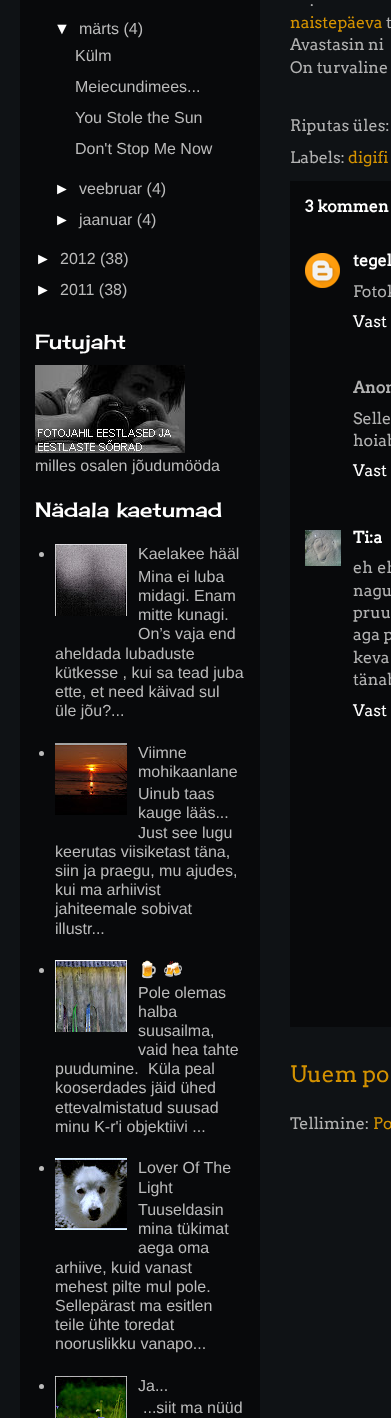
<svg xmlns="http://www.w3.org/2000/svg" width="391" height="1418">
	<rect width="100%" height="100%" fill="#0F1215" />
	<rect x="20" y="0" width="240" height="1418" fill="#08090B" />
	<text x="54" y="34" font-family="Liberation Sans" font-size="16" fill="#FFFFFF">▼</text>
	<g font-family="Liberation Sans" font-size="16" fill="#BBBBBB">
		<text x="79" y="34">märts (4)</text>
		<text x="75" y="61">Külm</text>
		<text x="75" y="92">Meiecundimees...</text>
		<text x="75" y="123">You Stole the Sun</text>
		<text x="75" y="154">Don't Stop Me Now</text>
	</g>
	<text x="54" y="194" font-family="Liberation Sans" font-size="16" fill="#FFFFFF">►</text>
	<text x="79" y="194" font-family="Liberation Sans" font-size="16" fill="#BBBBBB">veebruar (4)</text>
	<text x="54" y="225" font-family="Liberation Sans" font-size="16" fill="#FFFFFF">►</text>
	<text x="79" y="225" font-family="Liberation Sans" font-size="16" fill="#BBBBBB">jaanuar (4)</text>
	<text x="35" y="264" font-family="Liberation Sans" font-size="16" fill="#FFFFFF">►</text>
	<text x="60" y="264" font-family="Liberation Sans" font-size="16" fill="#BBBBBB">2012 (38)</text>
	<text x="35" y="295" font-family="Liberation Sans" font-size="16" fill="#FFFFFF">►</text>
	<text x="60" y="295" font-family="Liberation Sans" font-size="16" fill="#BBBBBB">2011 (38)</text>
	<text x="35" y="349" font-family="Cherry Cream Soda" font-size="20" fill="#FFFFFF">Futujaht</text>
	<image x="35" y="365" width="150" height="88" href="assets/img1.png" />
	<text x="35" y="471" font-family="Liberation Sans" font-size="16" fill="#BBBBBB">milles osalen jõudumööda</text>
	<text x="35" y="517" font-family="Cherry Cream Soda" font-size="20" fill="#FFFFFF">Nädala kaetumad</text>
	<circle cx="41.5" cy="554.5" r="2.5" fill="#BBBBBB" />
	<image x="55" y="544" width="72" height="72" href="assets/img2.png" />
	<g font-family="Liberation Sans" font-size="16" fill="#BBBBBB">
		<text x="138" y="559">Kaelakee hääl</text>
		<text x="138" y="582">Mina ei luba</text>
		<text x="138" y="601">midagi. Enam</text>
		<text x="138" y="620">mitte kunagi.</text>
		<text x="138" y="639">On’s vaja end</text>
		<text x="55" y="659">aheldada lubaduste</text>
		<text x="55" y="678">kütkesse , kui sa tead juba</text>
		<text x="55" y="697">ette, et need käivad sul</text>
		<text x="55" y="716">üle jõu?...</text>
	</g>
	<circle cx="41.5" cy="753.5" r="2.5" fill="#BBBBBB" />
	<image x="55" y="743" width="72" height="72" href="assets/img3.png" />
	<g font-family="Liberation Sans" font-size="16" fill="#BBBBBB">
		<text x="138" y="758">Viimne</text>
		<text x="138" y="777">mohikaanlane</text>
		<text x="138" y="799">Uinub taas</text>
		<text x="138" y="818">kauge lääs...</text>
		<text x="138" y="838">Just see lugu</text>
		<text x="55" y="857">keerutas viisiketast täna,</text>
		<text x="55" y="876">siin ja praegu, mu ajudes,</text>
		<text x="55" y="895">kui ma arhiivist</text>
		<text x="55" y="914">jahiteemale sobivat</text>
		<text x="55" y="934">illustr...</text>
	</g>
	<circle cx="41.5" cy="970.5" r="2.5" fill="#BBBBBB" />
	<image x="55" y="960" width="72" height="72" href="assets/img4.png" />
	<g font-family="Noto Color Emoji" font-size="16" fill="#BBBBBB">
		<text x="138" y="975">🍺</text>
		<text x="163" y="975">🍻</text>
	</g>
	<g font-family="Liberation Sans" font-size="16" fill="#BBBBBB">
		<text x="138" y="998">Pole olemas</text>
		<text x="138" y="1017">halba</text>
		<text x="138" y="1036">suusailma,</text>
		<text x="138" y="1055">vaid hea tahte</text>
		<text x="55" y="1074">puudumine.</text>
		<text x="148" y="1074">Küla peal</text>
		<text x="55" y="1093">kooserdades jäid ühed</text>
		<text x="55" y="1113">ettevalmistatud suusad</text>
		<text x="55" y="1132">minu K-r'i objektiivi ...</text>
	</g>
	<circle cx="41.5" cy="1168.5" r="2.5" fill="#BBBBBB" />
	<image x="55" y="1158" width="72" height="72" href="assets/img5.png" />
	<g font-family="Liberation Sans" font-size="16" fill="#BBBBBB">
		<text x="138" y="1173">Lover Of The</text>
		<text x="138" y="1193">Light</text>
		<text x="138" y="1215">Tuuseldasin</text>
		<text x="138" y="1234">mina tükimat</text>
		<text x="138" y="1253">aega oma</text>
		<text x="55" y="1273">arhiive, kuid vanast</text>
		<text x="55" y="1292">mehest pilte mul pole.</text>
		<text x="55" y="1311">Sellepärast ma esitlen</text>
		<text x="55" y="1330">teile ühte toredat</text>
		<text x="55" y="1349">nooruslikku vanapo...</text>
	</g>
	<circle cx="41.5" cy="1386.5" r="2.5" fill="#BBBBBB" />
	<image x="55" y="1376" width="72" height="42" href="assets/img6.png" />
	<g font-family="Liberation Sans" font-size="16" fill="#BBBBBB">
		<text x="138" y="1391">Ja...</text>
		<text x="143" y="1413">...siit ma nüüd</text>
	</g>
	<text x="310" y="6" font-family="Arvo" font-size="16" fill="#B2B2B2">.</text>
	<text x="290" y="28" font-family="Arvo" font-size="16" fill="#D49200">naistepäeva</text>
	<g font-family="Arvo" font-size="16" fill="#B2B2B2">
		<text x="386" y="28">t</text>
		<text x="290" y="50">Avastasin ni</text>
		<text x="290" y="73">On turvaline</text>
		<text x="290" y="131">Riputas üles:</text>
		<text x="290" y="163">Labels:</text>
	</g>
	<text x="348" y="163" font-family="Arvo" font-size="16" fill="#D49200">digifi</text>
	<rect x="290" y="181" width="101" height="846" fill="#08090B" />
	<text x="305" y="212" font-family="Arvo" font-size="16" font-weight="700" fill="#FFFFFF">3 kommen</text>
	<image x="305" y="253" width="35" height="35" href="assets/img7.png" />
	<text x="353" y="266" font-family="Arvo" font-size="16" font-weight="700" fill="#FFFFFF">tegel</text>
	<text x="353" y="297" font-family="Arvo" font-size="16" fill="#B2B2B2">Fotok</text>
	<text x="353" y="327" font-family="Arvo" font-size="16" fill="#FFFFFF">Vast</text>
	<text x="353" y="393" font-family="Arvo" font-size="16" font-weight="700" fill="#B2B2B2">Anon</text>
	<g font-family="Arvo" font-size="16" fill="#B2B2B2">
		<text x="353" y="424" word-spacing="3">Selle</text>
		<text x="353" y="446">hoiab</text>
	</g>
	<text x="353" y="476" font-family="Arvo" font-size="16" fill="#FFFFFF">Vast</text>
	<image x="305" y="530" width="36" height="36" href="assets/img8.png" />
	<text x="353" y="543" font-family="Arvo" font-size="16" font-weight="700" fill="#FFFFFF">Ti:a</text>
	<g font-family="Arvo" font-size="16" fill="#B2B2B2">
		<text x="353" y="573" word-spacing="1">eh eh</text>
		<text x="353" y="596" word-spacing="6">nagu</text>
		<text x="353" y="618">pruu</text>
		<text x="353" y="640">aga p</text>
		<text x="353" y="663">keva</text>
		<text x="353" y="685">tänab</text>
	</g>
	<text x="353" y="716" font-family="Arvo" font-size="16" fill="#FFFFFF">Vast</text>
	<text x="290" y="1082" font-family="Arvo" font-size="22.5" fill="#D49200">Uuem po</text>
	<text x="290" y="1129" font-family="Arvo" font-size="16" fill="#B2B2B2">Tellimine:</text>
	<text x="373" y="1129" font-family="Arvo" font-size="16" fill="#D49200">Po</text>
</svg>
